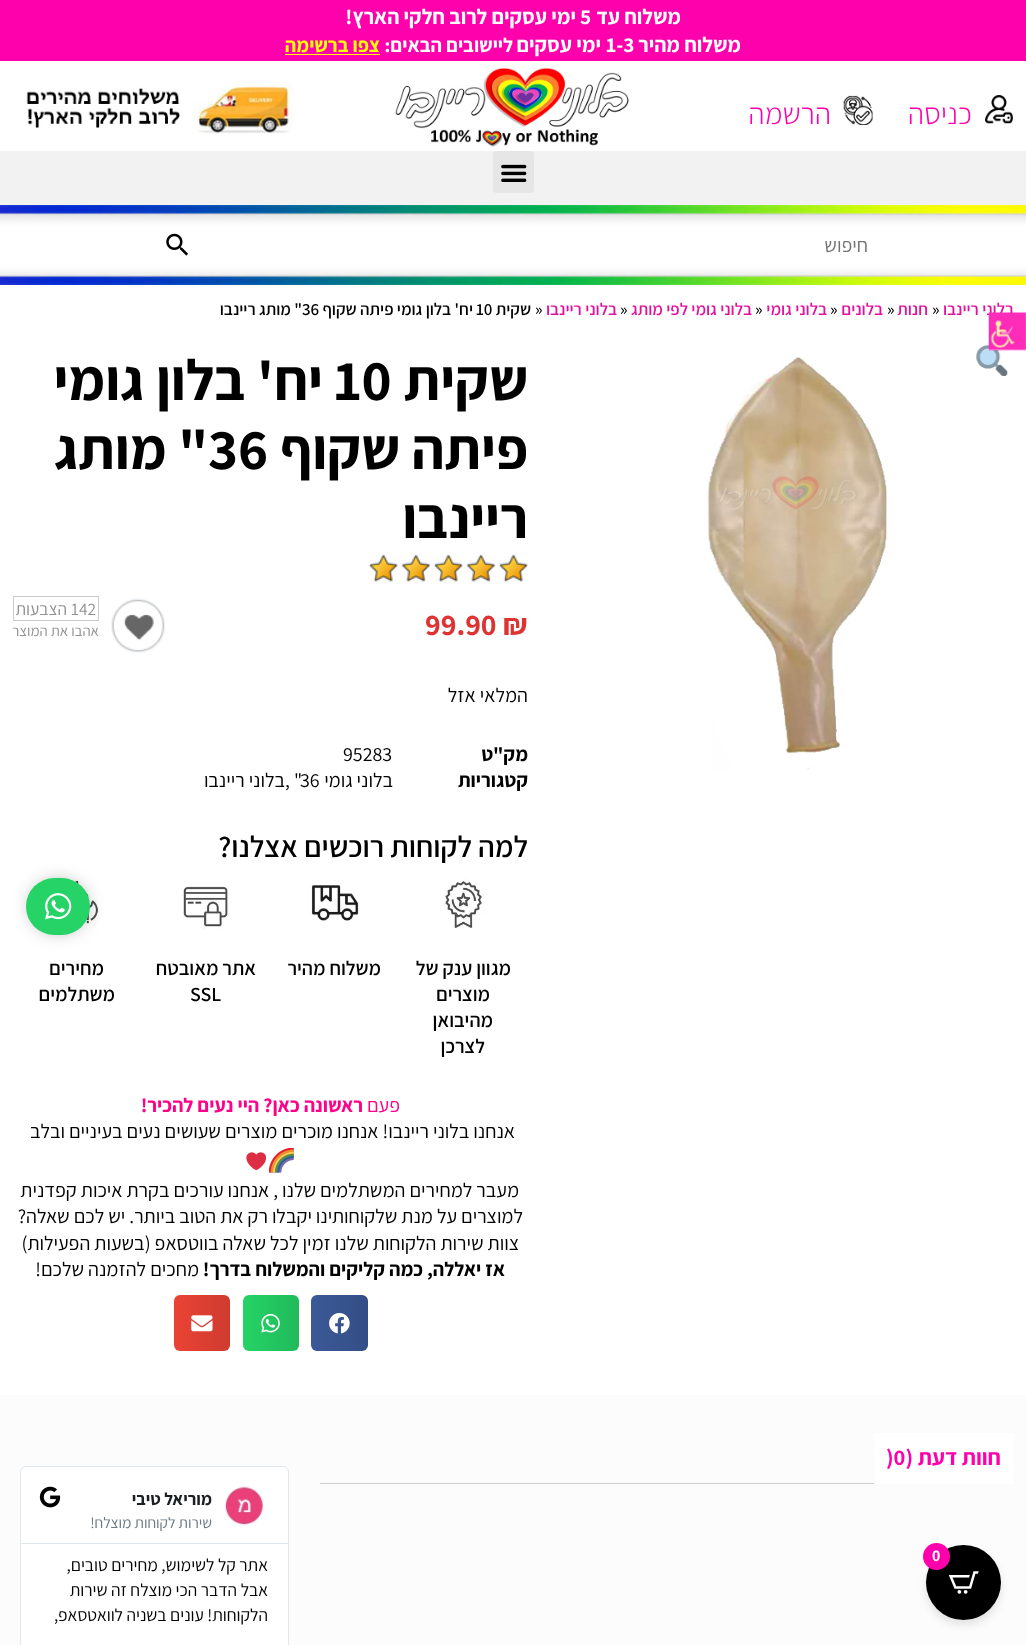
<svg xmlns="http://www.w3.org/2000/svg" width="1026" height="1645">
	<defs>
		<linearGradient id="g1" gradientUnits="userSpaceOnUse" x1="368" y1="1323" x2="311" y2="1323"><stop offset="0" stop-color="#000000" stop-opacity="0.12" /><stop offset="1" stop-color="#000000" stop-opacity="0" /></linearGradient>
		<linearGradient id="g2" gradientUnits="userSpaceOnUse" x1="299" y1="1323" x2="243" y2="1323"><stop offset="0" stop-color="#000000" stop-opacity="0.12" /><stop offset="1" stop-color="#000000" stop-opacity="0" /></linearGradient>
		<linearGradient id="g3" gradientUnits="userSpaceOnUse" x1="230" y1="1323" x2="174" y2="1323"><stop offset="0" stop-color="#000000" stop-opacity="0.12" /><stop offset="1" stop-color="#000000" stop-opacity="0" /></linearGradient>
	</defs>
	<rect width="100%" height="100%" fill="#FFFFFF" />
	<rect x="0" y="0" width="1026" height="61" fill="#FF00AD" />
	<text x="681" y="24" font-family="Assistant" font-size="21.25" font-weight="700" direction="rtl" fill="#FFFFFF">משלוח עד</text>
	<text x="580" y="24" font-family="Assistant" font-size="21.25" font-weight="700" fill="#FFFFFF">5</text>
	<g font-family="Assistant" font-size="21.25" font-weight="700" direction="rtl" fill="#FFFFFF">
		<text x="576" y="24">ימי עסקים לרוב חלקי הארץ!</text>
		<text x="741" y="52">משלוח מהיר</text>
	</g>
	<text x="606" y="52" font-family="Assistant" font-size="21.25" font-weight="700" fill="#FFFFFF">1-3</text>
	<text x="601" y="52" font-family="Assistant" font-size="21.25" font-weight="700" direction="rtl" fill="#FFFFFF">ימי עסקים</text>
	<text x="513" y="52" font-family="Assistant" font-size="20" font-weight="700" direction="rtl" fill="#FFFFFF">ליישובים הבאים:</text>
	<text x="380" y="52" font-family="Assistant" font-size="20" font-weight="700" direction="rtl" fill="#FFFF00">צפו ברשימה</text>
	<rect x="285" y="54" width="95" height="1" fill="#FFFF00" />
	<image x="985" y="95" width="28" height="29" href="assets/img1.png" />
	<text x="972" y="124" font-family="Assistant" font-size="30" font-weight="300" direction="rtl" fill="#FF00AD">כניסה</text>
	<image x="843" y="95" width="30" height="30" href="assets/img2.png" />
	<text x="831" y="124" font-family="Assistant" font-size="30" font-weight="300" direction="rtl" fill="#FF00AD">הרשמה</text>
	<image x="395" y="68" width="234" height="79" href="assets/img3.png" />
	<image x="26" y="81" width="269" height="53" href="assets/img4.png" />
	<rect x="0" y="151" width="1026" height="54" fill="#F2F2F2" />
	<rect x="493" y="151" width="41" height="42" rx="4" fill="#E6E6E6" />
	<image x="501" y="164" width="26" height="18" href="assets/img5.png" />
	<image x="0" y="205" width="1026" height="80" href="assets/img6.png" />
	<text x="868" y="252" font-family="Assistant" font-size="20" direction="rtl" fill="#757575">חיפוש</text>
	<image x="166" y="233" width="22" height="23" href="assets/img7.png" />
	<text x="1014" y="315" font-family="Assistant" font-size="17" font-weight="600" direction="rtl" fill="#E3109F">בלוני ריינבו</text>
	<text x="932" y="315" font-family="Assistant" font-size="17" font-weight="600" fill="#000000">»</text>
	<text x="928" y="315" font-family="Assistant" font-size="17" font-weight="600" direction="rtl" fill="#E3109F">חנות</text>
	<text x="887" y="315" font-family="Assistant" font-size="17" font-weight="600" fill="#000000">»</text>
	<text x="883" y="315" font-family="Assistant" font-size="17" font-weight="600" direction="rtl" fill="#E3109F">בלונים</text>
	<text x="830" y="315" font-family="Assistant" font-size="17" font-weight="600" fill="#000000">»</text>
	<text x="827" y="315" font-family="Assistant" font-size="17" font-weight="600" direction="rtl" fill="#E3109F">בלוני גומי</text>
	<text x="755" y="315" font-family="Assistant" font-size="17" font-weight="600" fill="#000000">»</text>
	<text x="752" y="315" font-family="Assistant" font-size="17" font-weight="600" direction="rtl" fill="#E3109F">בלוני גומי לפי מותג</text>
	<text x="620" y="315" font-family="Assistant" font-size="17" font-weight="600" fill="#000000">»</text>
	<text x="617" y="315" font-family="Assistant" font-size="17" font-weight="600" direction="rtl" fill="#E3109F">בלוני ריינבו</text>
	<text x="535" y="315" font-family="Assistant" font-size="17" font-weight="600" fill="#000000">»</text>
	<text x="531" y="315" font-family="Assistant" font-size="17" font-weight="600" direction="rtl" fill="#000000">שקית</text>
	<text x="476" y="315" font-family="Assistant" font-size="17" font-weight="600" fill="#000000">10</text>
	<text x="473" y="315" font-family="Assistant" font-size="17" font-weight="600" direction="rtl" fill="#000000">יח' בלון גומי פיתה שקוף</text>
	<text x="302" y="315" font-family="Assistant" font-size="17" font-weight="600" fill="#000000">36</text>
	<text x="302" y="315" font-family="Assistant" font-size="17" font-weight="600" direction="rtl" fill="#000000">" מותג ריינבו</text>
	<image x="976" y="345" width="32" height="31" href="assets/img8.png" />
	<image x="707" y="357" width="180" height="413" href="assets/img9.png" />
	<text x="528" y="400" font-family="Assistant" font-size="57.5" font-weight="700" direction="rtl" fill="#000000">שקית</text>
	<text x="334" y="400" font-family="Assistant" font-size="57.5" font-weight="700" fill="#000000">10</text>
	<g font-family="Assistant" font-size="57.5" font-weight="700" direction="rtl" fill="#000000">
		<text x="323" y="400">יח' בלון גומי</text>
		<text x="528" y="469">פיתה שקוף</text>
	</g>
	<text x="208" y="469" font-family="Assistant" font-size="57.5" font-weight="700" fill="#000000">36</text>
	<g font-family="Assistant" font-size="57.5" font-weight="700" direction="rtl" fill="#000000">
		<text x="208" y="469">" מותג</text>
		<text x="528" y="538">ריינבו</text>
	</g>
	<image x="368" y="553" width="160" height="30" href="assets/img10.png" />
	<text x="425" y="635" font-family="Assistant" font-size="30" font-weight="700" fill="#DD3333">99.90 ₪</text>
	<image x="111" y="598" width="54" height="55" href="assets/img11.png" />
	<rect x="13.5" y="596.5" width="85" height="24" fill="none" stroke="#CCCCCC" />
	<text x="71" y="615" font-family="Assistant" font-size="17.5" fill="#929292">142</text>
	<text x="67" y="615" font-family="Assistant" font-size="17.5" direction="rtl" fill="#929292">הצבעות</text>
	<text x="99" y="636" font-family="Assistant" font-size="15" direction="rtl" fill="#929292">אהבו את המוצר</text>
	<text x="528" y="702" font-family="Assistant" font-size="20" direction="rtl" fill="#000000">המלאי אזל</text>
	<text x="528" y="761" font-family="Assistant" font-size="20" font-weight="700" direction="rtl" fill="#000000">מק"ט</text>
	<text x="343" y="761" font-family="Assistant" font-size="20" fill="#000000">95283</text>
	<text x="528" y="787" font-family="Assistant" font-size="20" font-weight="700" direction="rtl" fill="#000000">קטגוריות</text>
	<text x="393" y="787" font-family="Assistant" font-size="20" direction="rtl" fill="#000000">בלוני גומי</text>
	<g font-family="Assistant" font-size="20" fill="#000000">
		<text x="294" y="787">"</text>
		<text x="300" y="787">36</text>
		<text x="285" y="787">,</text>
	</g>
	<text x="285" y="787" font-family="Assistant" font-size="20" direction="rtl" fill="#000000">בלוני ריינבו</text>
	<text x="528" y="857" font-family="Assistant" font-size="30" font-weight="600" direction="rtl" fill="#000000">למה לקוחות רוכשים אצלנו?</text>
	<image x="443" y="878" width="45" height="51" href="assets/img12.png" />
	<g font-family="Assistant" font-size="20" font-weight="600" direction="rtl" fill="#000000">
		<text x="511" y="975">מגוון ענק של</text>
		<text x="490" y="1001">מוצרים</text>
		<text x="493" y="1027">מהיבואן</text>
		<text x="485" y="1053">לצרכן</text>
	</g>
	<image x="311" y="885" width="48" height="36" href="assets/img13.png" />
	<text x="381" y="975" font-family="Assistant" font-size="20" font-weight="600" direction="rtl" fill="#000000">משלוח מהיר</text>
	<image x="182" y="886" width="47" height="43" href="assets/img14.png" />
	<text x="256" y="975" font-family="Assistant" font-size="20" font-weight="600" direction="rtl" fill="#000000">אתר מאובטח</text>
	<text x="190" y="1001" font-family="Assistant" font-size="20" font-weight="600" fill="#000000">SSL</text>
	<image x="72" y="880" width="27" height="49" href="assets/img15.png" />
	<g font-family="Assistant" font-size="20" font-weight="600" direction="rtl" fill="#000000">
		<text x="104" y="975">מחירים</text>
		<text x="115" y="1001">משתלמים</text>
	</g>
	<text x="400" y="1112" font-family="Assistant" font-size="20" direction="rtl" fill="#FF0088">פעם</text>
	<text x="363" y="1112" font-family="Assistant" font-size="20" font-weight="700" direction="rtl" fill="#FF0088">ראשונה כאן? היי נעים להכיר!</text>
	<text x="515" y="1138" font-family="Assistant" font-size="20" direction="rtl" fill="#000000">אנחנו בלוני ריינבו! אנחנו מוכרים מוצרים שעושים נעים בעיניים ובלב</text>
	<image x="269" y="1148" width="25" height="25" href="assets/img16.png" />
	<image x="246" y="1152" width="20" height="19" href="assets/img17.png" />
	<g font-family="Assistant" font-size="20" direction="rtl" fill="#000000">
		<text x="519" y="1197">מעבר למחירים המשתלמים שלנו , אנחנו עורכים בקרת איכות קפדנית</text>
		<text x="523" y="1223">למוצרים על מנת שלקוחותינו יקבלו רק את הטוב ביותר. יש לכם שאלה?</text>
		<text x="519" y="1250">צוות שירות הלקוחות שלנו זמין לכל שאלה בווטסאפ (בשעות הפעילות)</text>
	</g>
	<text x="505" y="1276" font-family="Assistant" font-size="20" font-weight="700" direction="rtl" fill="#000000">אז יאללה, כמה קליקים והמשלוח בדרך!</text>
	<text x="199" y="1276" font-family="Assistant" font-size="20" direction="rtl" fill="#000000">מחכים להזמנה שלכם!</text>
	<rect x="311" y="1295" width="57" height="56" rx="6" fill="#3B5998" />
	<rect x="311" y="1295" width="57" height="56" rx="6" fill="url(#g1)" />
	<image x="329" y="1313" width="21" height="21" href="assets/img18.png" />
	<rect x="243" y="1295" width="56" height="56" rx="6" fill="#25D366" />
	<rect x="243" y="1295" width="56" height="56" rx="6" fill="url(#g2)" />
	<image x="261" y="1314" width="19" height="19" href="assets/img19.png" />
	<rect x="174" y="1295" width="56" height="56" rx="6" fill="#EA4335" />
	<rect x="174" y="1295" width="56" height="56" rx="6" fill="url(#g3)" />
	<image x="191" y="1315" width="22" height="17" href="assets/img20.png" />
	<rect x="0" y="1395" width="1026" height="250" fill="#FCFCFC" />
	<rect x="874" y="1433" width="140" height="51" fill="#FFFFFF" />
	<text x="1001" y="1465" font-family="Assistant" font-size="22.5" font-weight="700" direction="rtl" fill="#FF00AD">חוות דעת (</text>
	<text x="886" y="1465" font-family="Assistant" font-size="22.5" font-weight="700" fill="#FF00AD">)0</text>
	<rect x="320" y="1483" width="554" height="1" fill="#D3CED2" />
	<rect x="20.5" y="1466.5" width="268" height="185" rx="5.5" fill="#FFFFFF" stroke="#E1E8ED" />
	<rect x="21" y="1543" width="267" height="1" fill="#E1E8ED" />
	<image x="225" y="1486" width="41" height="42" href="assets/img21.png" />
	<text x="212" y="1505" font-family="Assistant" font-size="17.5" font-weight="700" direction="rtl" fill="#1C2022">מוריאל טיבי</text>
	<text x="212" y="1528" font-family="Assistant" font-size="15.5" direction="rtl" fill="#697882">שירות לקוחות מוצלח!</text>
	<image x="39" y="1486" width="22" height="22" href="assets/img22.png" />
	<g font-family="Assistant" font-size="17.5" direction="rtl" fill="#000000">
		<text x="268" y="1571">אתר קל לשימוש, מחירים טובים,</text>
		<text x="268" y="1596">אבל הדבר הכי מוצלח זה שירות</text>
		<text x="268" y="1621">הלקוחות! עונים בשניה לוואטסאפ,</text>
	</g>
	<rect x="34" y="885" width="49" height="43" rx="21.5" fill="#000000" fill-opacity="0.5" filter="blur(10px)" />
	<rect x="26" y="878" width="64" height="57" rx="28.5" fill="#25D366" />
	<image x="45" y="893" width="27" height="27" href="assets/img23.png" />
	<rect x="926" y="1550" width="75" height="75" rx="37.5" fill="#000000" fill-opacity="0.1" filter="blur(4.5px)" />
	<circle cx="963.5" cy="1582.5" r="37.5" fill="#000000" />
	<circle cx="936.5" cy="1556.5" r="13.5" fill="#FF00AD" />
	<text x="932" y="1561" font-family="Liberation Sans" font-size="15" font-weight="700" fill="#FFFFFF">0</text>
	<image x="949" y="1571" width="30" height="23" href="assets/img24.png" />
	<rect x="989" y="313" width="25" height="37" fill="#FFFFFF" />
	<image x="988" y="312" width="38" height="39" href="assets/img25.png" />
</svg>
